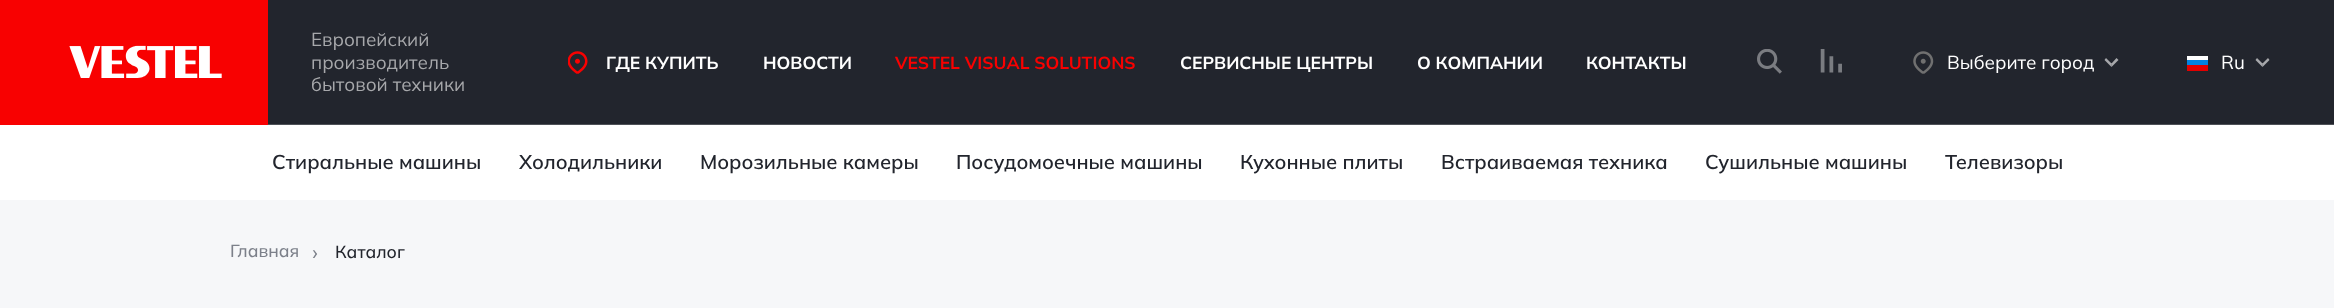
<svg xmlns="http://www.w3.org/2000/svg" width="2334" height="308">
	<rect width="100%" height="100%" fill="#F6F7F9" />
	<rect x="268" y="0" width="2066" height="124" fill="#22252D" />
	<rect x="268" y="124" width="2066" height="1" fill="#4E5157" />
	<rect x="0" y="0" width="268" height="125" fill="#F80101" />
	<image x="69" y="45" width="153" height="33" href="assets/img1.png" />
	<g font-family="Mulish" font-size="18.75" fill="#A7A8AB">
		<text x="311" y="46">Европейский</text>
		<text x="311" y="69">производитель</text>
		<text x="311" y="91">бытовой техники</text>
	</g>
	<image x="568" y="51" width="20" height="23" href="assets/img2.png" />
	<g font-family="Mulish" font-size="17.5" font-weight="700" fill="#FFFFFF">
		<text x="606" y="69">ГДЕ КУПИТЬ</text>
		<text x="763" y="69">НОВОСТИ</text>
	</g>
	<text x="895" y="69" font-family="Mulish" font-size="17.5" font-weight="700" fill="#F80101">VESTEL VISUAL SOLUTIONS</text>
	<g font-family="Mulish" font-size="17.5" font-weight="700" fill="#FFFFFF">
		<text x="1180" y="69">СЕРВИСНЫЕ ЦЕНТРЫ</text>
		<text x="1417" y="69">О КОМПАНИИ</text>
		<text x="1586" y="69">КОНТАКТЫ</text>
	</g>
	<image x="1757" y="49" width="25" height="25" href="assets/img3.png" />
	<image x="1820" y="49" width="22" height="24" href="assets/img4.png" />
	<image x="1913" y="51" width="21" height="23" href="assets/img5.png" />
	<text x="1947" y="69" font-family="Mulish" font-size="18.75" fill="#FFFFFF">Выберите город</text>
	<path d="M2118.5 60L2111.5 67V63.5L2116.5 58Z" fill="#A7A8AB" />
	<path d="M2111.5 67L2104.5 60L2106 58L2111.5 63.5Z" fill="#FFFFFF" fill-opacity="0.6" />
	<rect x="2187" y="56" width="21" height="4" fill="#FFFFFF" />
	<rect x="2187" y="60" width="21" height="5" fill="#0083E1" />
	<rect x="2187" y="65" width="21" height="6" fill="#E10000" />
	<text x="2221" y="69" font-family="Mulish" font-size="18.75" fill="#FFFFFF">Ru</text>
	<path d="M2269.5 60L2262.5 67V63.5L2268 58Z" fill="#A7A8AB" />
	<path d="M2262.5 67L2255.5 60L2257 58L2262.5 63.5Z" fill="#FFFFFF" fill-opacity="0.6" />
	<rect x="0" y="125" width="2334" height="75" fill="#FFFFFF" />
	<g font-family="Mulish" font-size="20" font-weight="600" fill="#22252D">
		<text x="272" y="169">Стиральные машины</text>
		<text x="519" y="169">Холодильники</text>
		<text x="700" y="169">Морозильные камеры</text>
		<text x="956" y="169">Посудомоечные машины</text>
		<text x="1240" y="169">Кухонные плиты</text>
		<text x="1441" y="169">Встраиваемая техника</text>
		<text x="1705" y="169">Сушильные машины</text>
		<text x="1945" y="169">Телевизоры</text>
	</g>
	<text x="230" y="257" font-family="Mulish" font-size="17.5" font-weight="500" fill="#7C808A">Главная</text>
	<text x="312" y="260" font-family="Mulish" font-size="22" fill="#7C808A">›</text>
	<text x="335" y="258" font-family="Mulish" font-size="17.5" font-weight="500" fill="#22252D">Каталог</text>
</svg>
